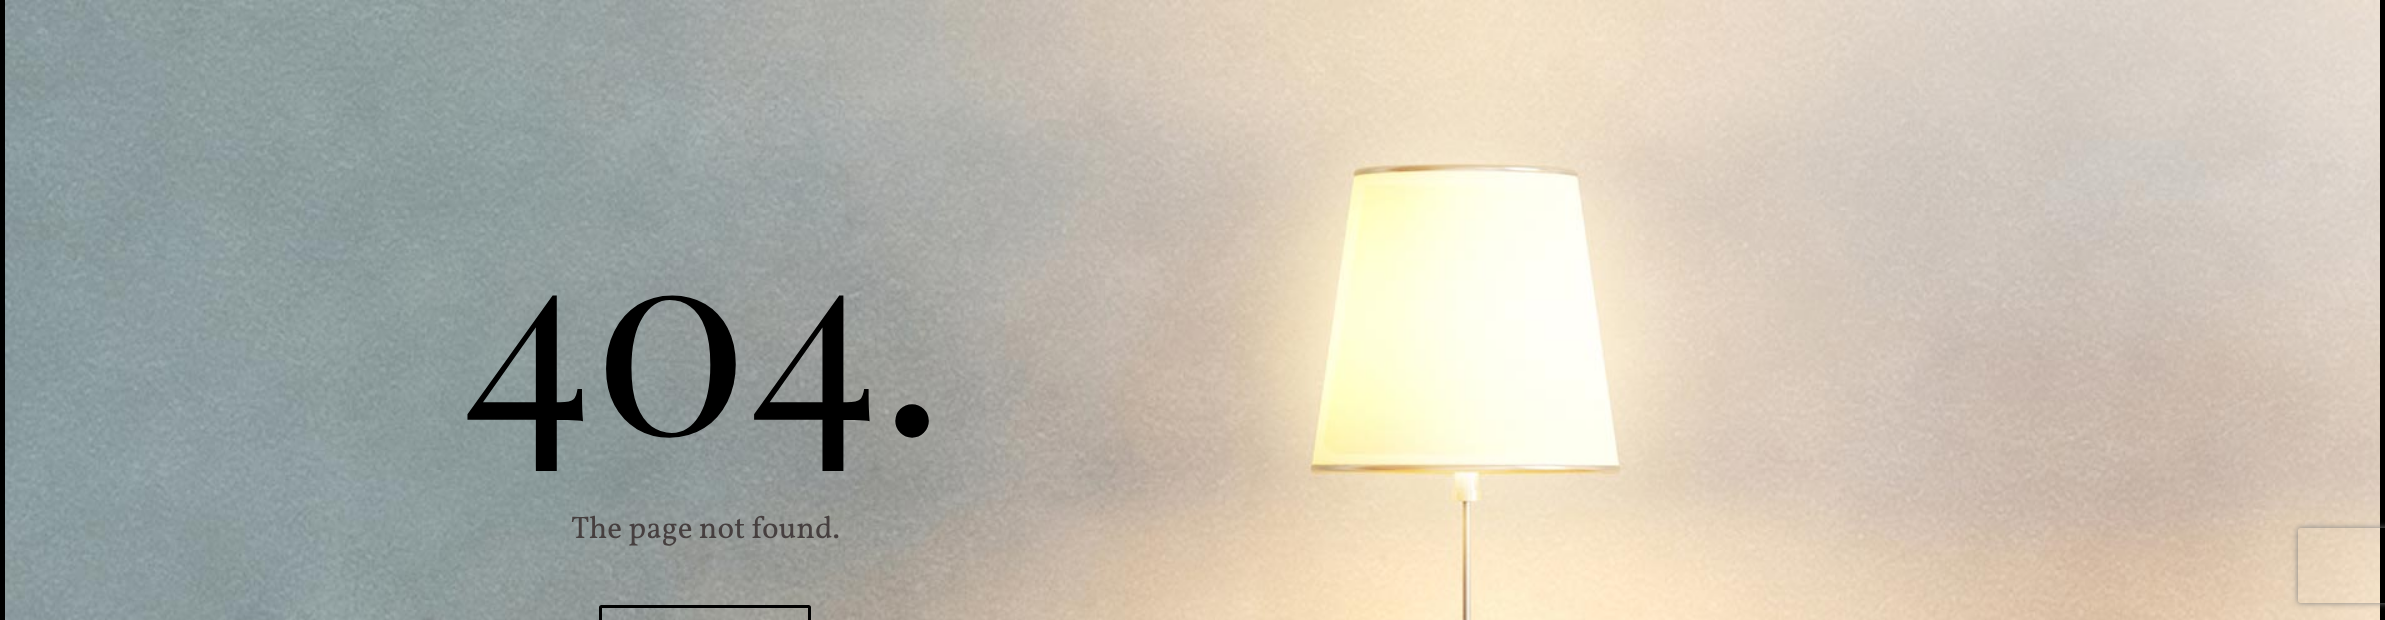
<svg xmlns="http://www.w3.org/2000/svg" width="2385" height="620">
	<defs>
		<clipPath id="clip1"><path d="M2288 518H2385V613H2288ZM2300.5 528H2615.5C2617 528 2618 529 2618 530.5V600.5C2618 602 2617 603 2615.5 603H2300.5C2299 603 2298 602 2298 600.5V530.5C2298 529 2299 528 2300.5 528Z" clip-rule="evenodd" /></clipPath>
	</defs>
	<rect width="100%" height="100%" fill="#000000" />
	<image x="5" y="0" width="2375" height="620" href="assets/img1.png" />
	<text x="463" y="434" font-family="Playfair Display" font-size="262" fill="#000000">404.</text>
	<text x="571" y="538" font-family="Vollkorn" font-size="31.25" fill="#463F3F">The page not found.</text>
	<rect x="600.5" y="606.5" width="209" height="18" rx="1" fill="none" stroke="#000000" stroke-width="3" />
	<g clip-path="url(#clip1)">
		<rect x="2298" y="528" width="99" height="75" rx="2.5" fill="#808080" filter="blur(3px)" />
	</g>
</svg>
